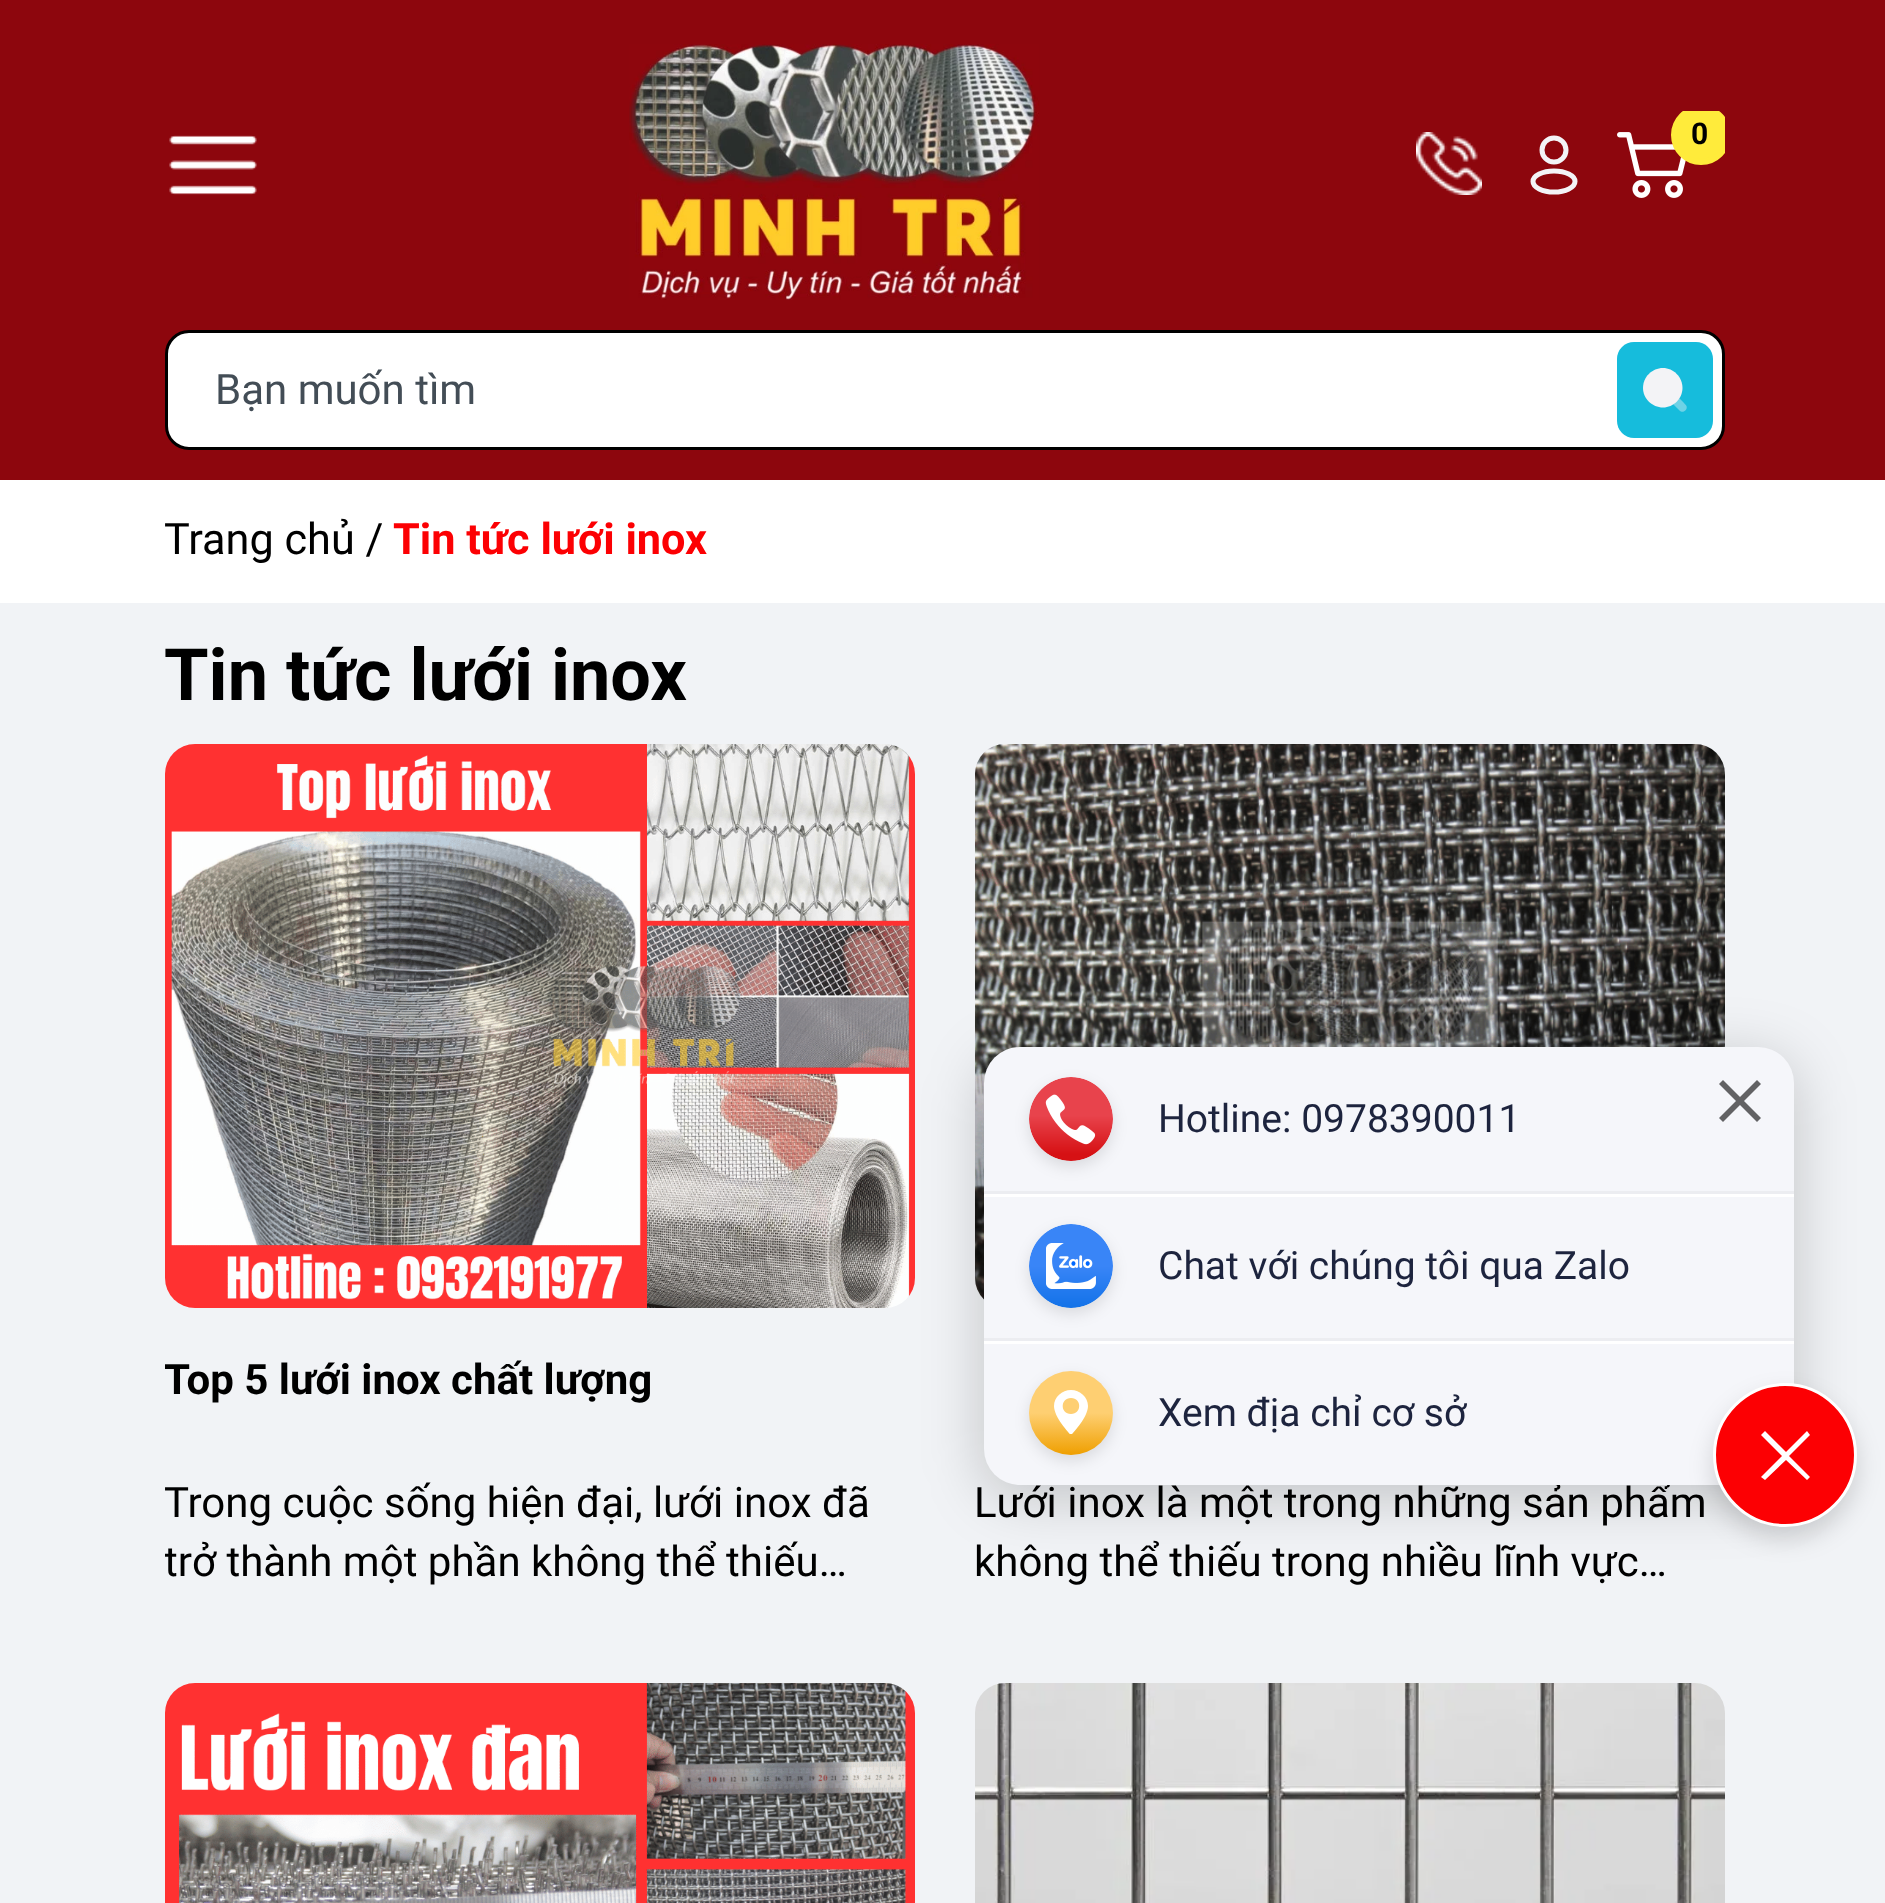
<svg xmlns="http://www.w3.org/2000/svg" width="1885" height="1903">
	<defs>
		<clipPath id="clip1"><rect x="1617" y="111" width="108" height="108" /></clipPath>
		<clipPath id="clip2"><rect x="165" y="1353" width="750" height="99" /></clipPath>
		<clipPath id="clip3"><rect x="165" y="1476" width="750" height="117" /></clipPath>
		<linearGradient id="g1" gradientUnits="userSpaceOnUse" x1="1071" y1="1371" x2="1071" y2="1455"><stop offset="0.5" stop-color="#FECF72" /><stop offset="1" stop-color="#EF9F00" /></linearGradient>
	</defs>
	<rect width="100%" height="100%" fill="#F1F3F6" />
	<rect x="0" y="0" width="1885" height="480" fill="#8D060D" />
	<image x="169" y="135" width="88" height="60" href="assets/img1.png" />
	<image x="629" y="44" width="410" height="256" href="assets/img2.png" />
	<image x="1416" y="132" width="66" height="63" href="assets/img3.png" />
	<ellipse cx="1554" cy="181.5" rx="21" ry="10.5" fill="none" stroke="#F3F3F6" stroke-width="5" />
	<circle cx="1554" cy="150" r="12" fill="none" stroke="#F3F3F6" stroke-width="5" />
	<image x="1617" y="132" width="69" height="66" href="assets/img4.png" />
	<g clip-path="url(#clip1)">
		<circle cx="1701" cy="135" r="27" fill="#FFEB3B" stroke="#FFEB3B" stroke-width="6" />
	</g>
	<text x="1691" y="144" font-family="Roboto" font-size="30" font-weight="700" fill="#000000">0</text>
	<rect x="166.5" y="331.5" width="1557" height="117" rx="22.5" fill="#FFFFFF" stroke="#000000" stroke-width="3" />
	<text x="215" y="404" font-family="Roboto" font-size="42" fill="#434D56">Bạn muốn tìm</text>
	<rect x="1617" y="342" width="96" height="96" rx="17" fill="#16BCDC" />
	<path d="M1679.5 410.5C1682.5 414 1688 410 1686.5 406C1685.5 404 1679 398 1677 396L1671 402Z" fill="#6ED2E6" />
	<path d="M1663 407.5C1652 407.5 1643 398.5 1643 388C1643 377 1652 368 1663 368C1673.5 368 1682.5 377 1682.5 388C1682.5 398.5 1673.5 407.5 1663 407.5Z" fill="#F3F3F6" />
	<rect x="0" y="480" width="1885" height="123" fill="#FFFFFF" />
	<text x="164" y="554" font-family="Roboto" font-size="43.25" fill="#000000">Trang chủ /</text>
	<text x="393" y="554" font-family="Roboto" font-size="43.25" font-weight="700" fill="#FC0003">Tin tức lưới inox</text>
	<text x="164" y="700" font-family="Roboto" font-size="72" font-weight="700" fill="#000000">Tin tức lưới inox</text>
	<image x="165" y="744" width="750" height="564" href="assets/img5.png" />
	<g clip-path="url(#clip2)">
		<text x="164" y="1394" font-family="Roboto" font-size="42" font-weight="700" fill="#000000">Top 5 lưới inox chất lượng</text>
	</g>
	<g clip-path="url(#clip3)">
		<g font-family="Roboto" font-size="42" fill="#000000">
			<text x="164" y="1517">Trong cuộc sống hiện đại, lưới inox đã</text>
			<text x="164" y="1576">trở thành một phần không thể thiếu…</text>
		</g>
	</g>
	<image x="975" y="744" width="750" height="556" href="assets/img6.png" />
	<g font-family="Roboto" font-size="42" fill="#000000">
		<text x="974" y="1517">Lưới inox là một trong những sản phẩm</text>
		<text x="974" y="1576">không thể thiếu trong nhiều lĩnh vực…</text>
	</g>
	<image x="165" y="1683" width="750" height="220" href="assets/img7.png" />
	<image x="975" y="1683" width="750" height="220" href="assets/img8.png" />
	<rect x="984" y="1059" width="810" height="438" rx="36" fill="#000000" fill-opacity="0.2" filter="blur(30px)" />
	<rect x="984" y="1047" width="810" height="438" rx="36" fill="#F5F6FA" />
	<rect x="984" y="1194" width="810" height="3" fill="#FFFFFF" />
	<rect x="984" y="1191" width="810" height="3" fill="#ECEDF1" />
	<rect x="1029" y="1083" width="84" height="84" rx="42" fill="#000000" fill-opacity="0.11" filter="blur(7.5px)" />
	<image x="1029" y="1077" width="84" height="84" href="assets/img9.png" />
	<text x="1158" y="1132" font-family="Roboto" font-size="39" fill="#1D243E">Hotline: 0978390011</text>
	<rect x="984" y="1341" width="810" height="3" fill="#FFFFFF" />
	<rect x="984" y="1338" width="810" height="3" fill="#ECEDF1" />
	<rect x="1029" y="1230" width="84" height="84" rx="42" fill="#000000" fill-opacity="0.11" filter="blur(7.5px)" />
	<image x="1029" y="1224" width="84" height="84" href="assets/img10.png" />
	<text x="1158" y="1279" font-family="Roboto" font-size="39" fill="#1D243E">Chat với chúng tôi qua Zalo</text>
	<rect x="1029" y="1377" width="84" height="84" rx="42" fill="#000000" fill-opacity="0.11" filter="blur(7.5px)" />
	<circle cx="1071" cy="1413" r="42" fill="url(#g1)" />
	<path d="M1071 1390C1062 1390 1054 1397 1054 1406C1054 1417 1069 1433 1070 1434C1070 1434 1072 1434 1072 1434C1073 1433 1088 1417 1088 1406C1088 1397 1080 1390 1071 1390ZM1071 1414C1060 1414 1060 1398 1071 1398C1082 1398 1082 1414 1071 1414Z" fill="#FFFFFF" />
	<text x="1158" y="1426" font-family="Roboto" font-size="39" fill="#1D243E">Xem địa chỉ cơ sở</text>
	<path d="M1761 1084L1757 1080L1740 1097L1723 1080L1719 1084L1736 1101L1719 1118L1723 1122L1740 1105L1757 1122L1761 1118L1744 1101Z" fill="#626264" fill-rule="evenodd" />
	<rect x="1713" y="1395" width="144" height="144" rx="72" fill="#000000" fill-opacity="0.15" filter="blur(12px)" />
	<circle cx="1785" cy="1455" r="70.5" fill="#FC0003" stroke="#FFFFFF" stroke-width="3" />
	<path d="M1786 1452L1807 1431L1810 1435L1789 1456L1810 1477L1807 1480L1786 1460L1765 1480L1761 1477L1782 1456L1761 1435L1765 1431Z" fill="#FFFFFF" fill-rule="evenodd" />
</svg>
